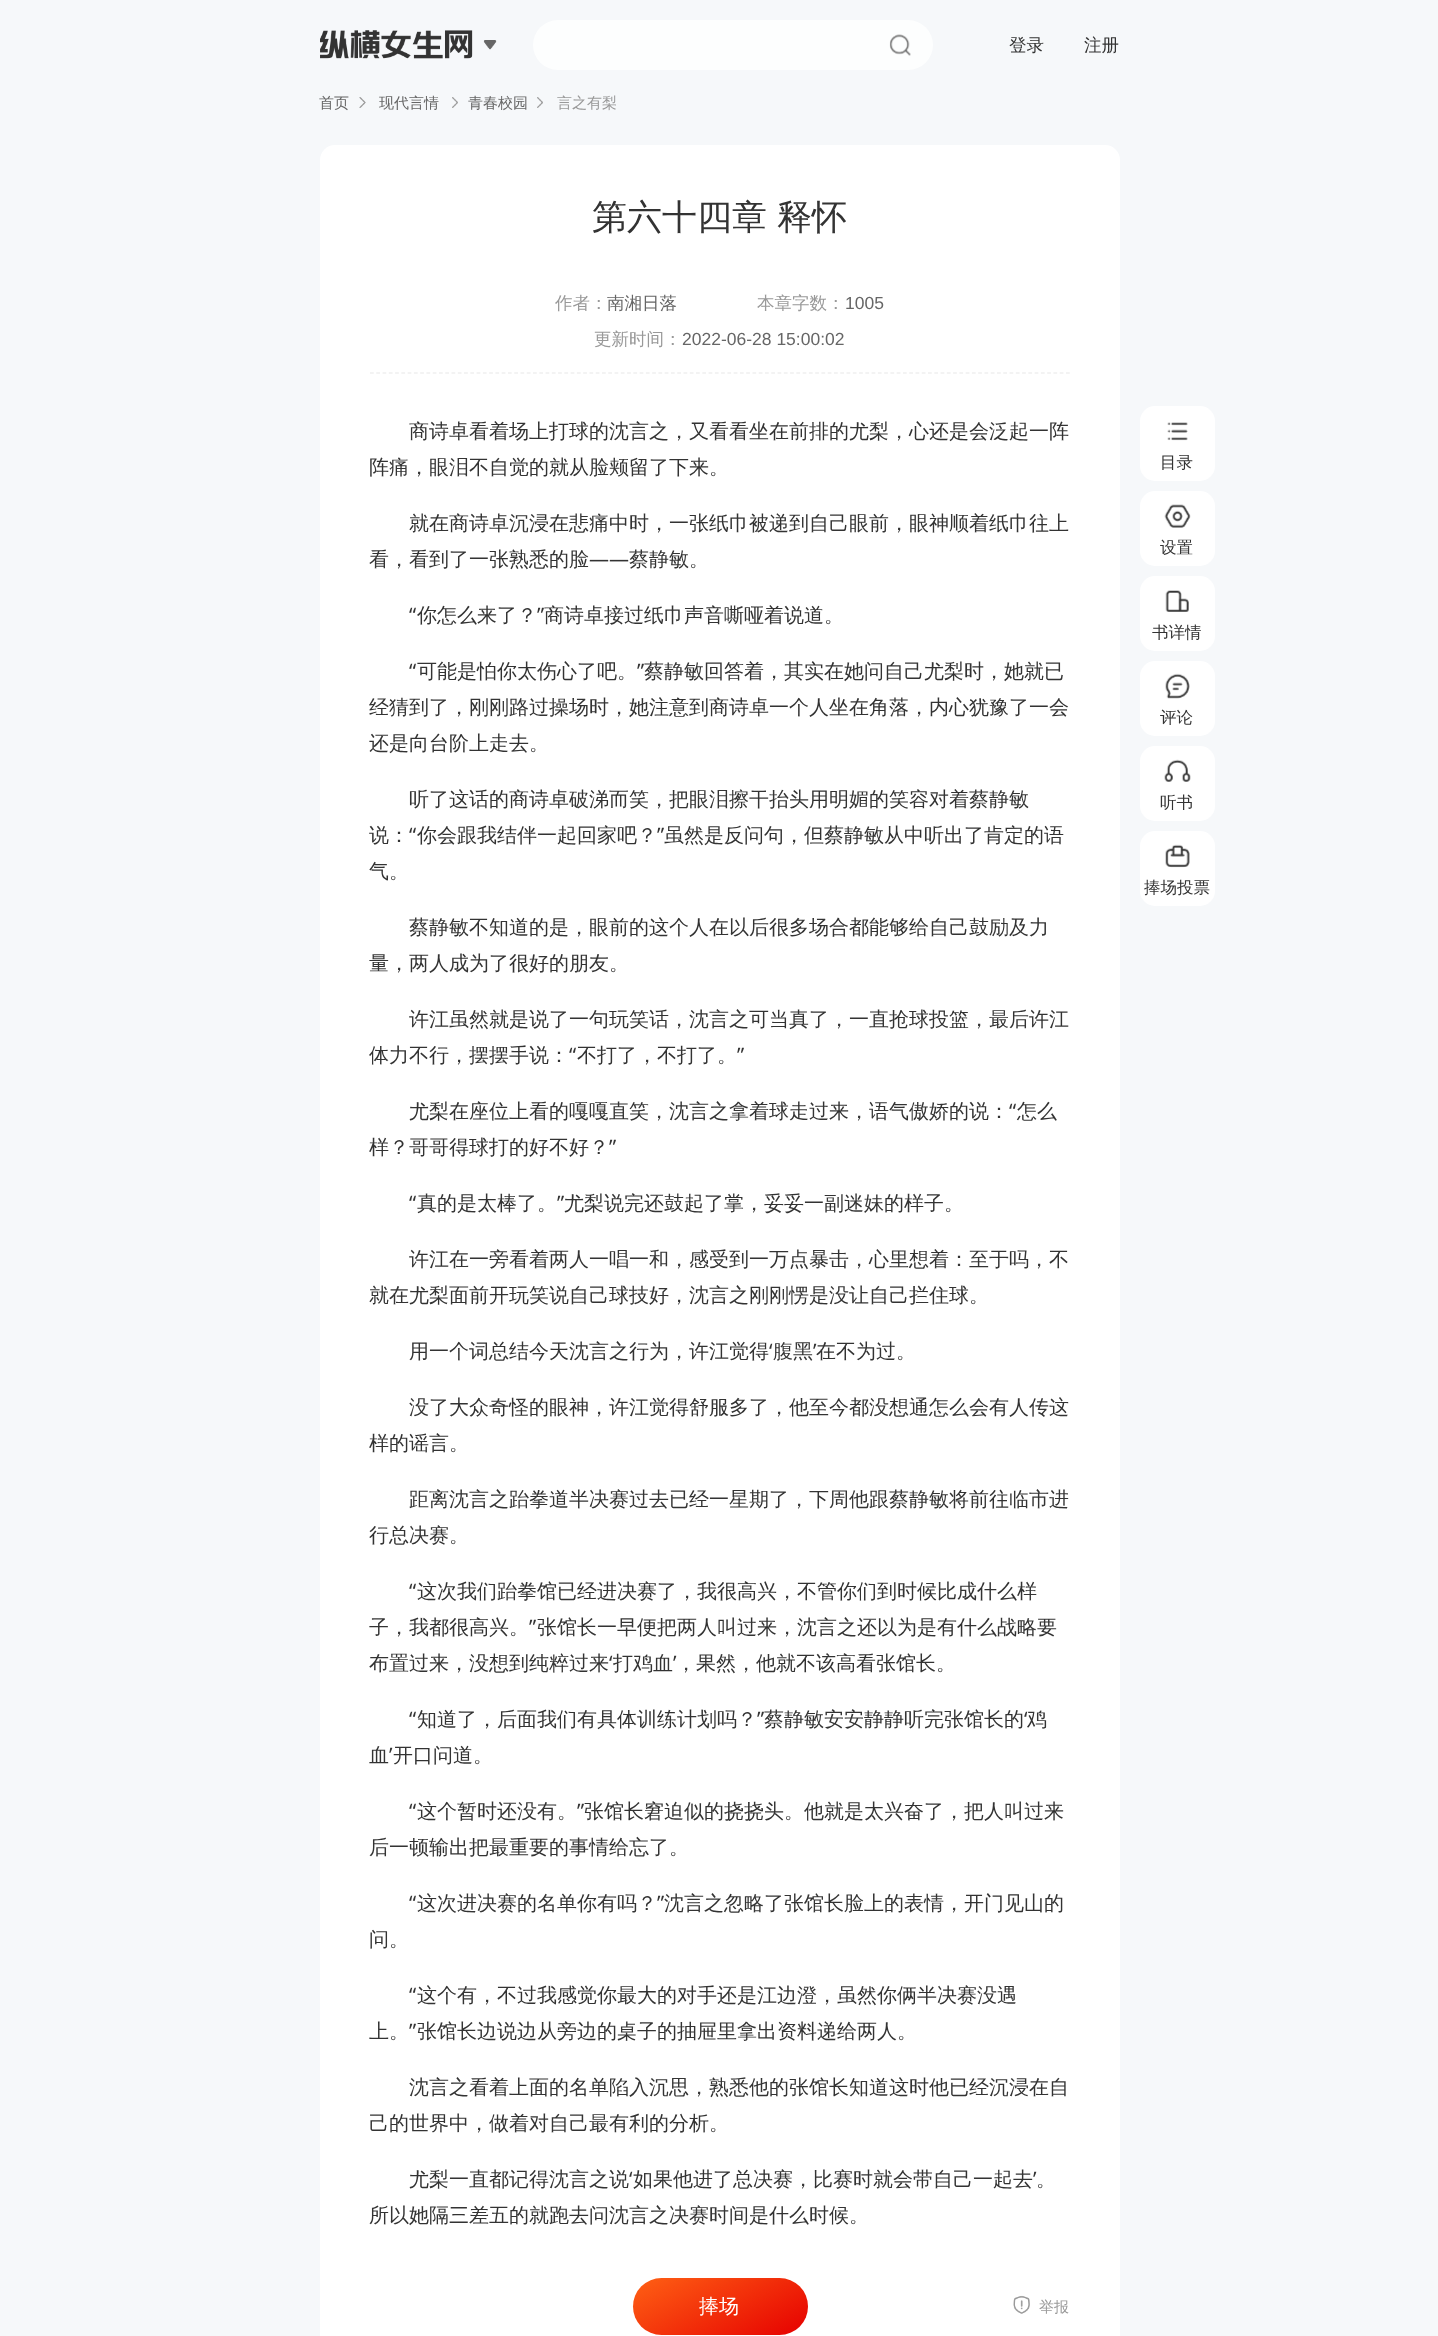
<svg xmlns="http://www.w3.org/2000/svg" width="1438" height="2336">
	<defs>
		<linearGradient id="g1" gradientUnits="userSpaceOnUse" x1="753" y1="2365" x2="687" y2="2247"><stop offset="0" stop-color="#E60000" /><stop offset="1" stop-color="#FF6114" /></linearGradient>
	</defs>
	<rect width="100%" height="100%" fill="#F6F8FA" />
	<image x="320" y="30" width="153" height="29" href="assets/img1.png" />
	<image x="483" y="40" width="14" height="10" href="assets/img2.png" />
	<rect x="533" y="20" width="400" height="50" rx="25" fill="#FDFEFE" />
	<image x="889" y="34" width="22" height="22" href="assets/img3.png" />
	<g font-family="WenQuanYi Zen Hei" font-size="17.5" font-weight="500" fill="#333333">
		<text x="1009" y="51">登录</text>
		<text x="1084" y="51">注册</text>
	</g>
	<text x="319" y="108" font-family="WenQuanYi Zen Hei" font-size="15" font-weight="500" fill="#666666">首页</text>
	<image x="359" y="97" width="7" height="11" href="assets/img4.png" />
	<text x="379" y="108" font-family="WenQuanYi Zen Hei" font-size="15" font-weight="500" fill="#666666">现代言情</text>
	<image x="452" y="97" width="6" height="11" href="assets/img5.png" />
	<text x="468" y="108" font-family="WenQuanYi Zen Hei" font-size="15" font-weight="500" fill="#666666">青春校园</text>
	<image x="537" y="97" width="6" height="11" href="assets/img6.png" />
	<text x="557" y="108" font-family="WenQuanYi Zen Hei" font-size="15" font-weight="500" fill="#999999">言之有梨</text>
	<rect x="320" y="145" width="800" height="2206" rx="15" fill="#FFFFFF" />
	<g font-family="WenQuanYi Zen Hei" font-size="35" font-weight="500" fill="#333333">
		<text x="592" y="229">第六十四章</text>
		<text x="777" y="229">释怀</text>
	</g>
	<text x="555" y="309" font-family="WenQuanYi Zen Hei" font-size="17.5" font-weight="500" fill="#999999">作者：</text>
	<text x="607" y="309" font-family="WenQuanYi Zen Hei" font-size="17.5" font-weight="500" fill="#666666">南湘日落</text>
	<text x="757" y="309" font-family="WenQuanYi Zen Hei" font-size="17.5" font-weight="500" fill="#999999">本章字数：</text>
	<text x="845" y="309" font-family="Liberation Sans" font-size="17.5" fill="#666666">1005</text>
	<text x="594" y="345" font-family="WenQuanYi Zen Hei" font-size="17.5" font-weight="500" fill="#999999">更新时间：</text>
	<text x="682" y="345" font-family="Liberation Sans" font-size="17.5" fill="#666666">2022-06-28 15:00:02</text>
	<path d="M370 373H1070" fill="none" stroke="#E7E7E7" stroke-width="1.2" stroke-dasharray="3.75 2.52" />
	<g font-family="WenQuanYi Zen Hei" font-size="20" font-weight="500" fill="#333333">
		<text x="409" y="438">商诗卓看着场上打球的沈言之，又看看坐在前排的尤梨，心还是会泛起一阵</text>
		<text x="369" y="474">阵痛，眼泪不自觉的就从脸颊留了下来。</text>
		<text x="409" y="530">就在商诗卓沉浸在悲痛中时，一张纸巾被递到自己眼前，眼神顺着纸巾往上</text>
		<text x="369" y="566">看，看到了一张熟悉的脸</text>
	</g>
	<text x="589" y="566" font-family="Noto Sans" font-size="20" fill="#333333">——</text>
	<text x="629" y="566" font-family="WenQuanYi Zen Hei" font-size="20" font-weight="500" fill="#333333">蔡静敏。</text>
	<text x="409" y="622" font-family="Noto Sans" font-size="20" fill="#333333">“</text>
	<text x="417" y="622" font-family="WenQuanYi Zen Hei" font-size="20" font-weight="500" fill="#333333">你怎么来了？</text>
	<text x="537" y="622" font-family="Noto Sans" font-size="20" fill="#333333">”</text>
	<text x="544" y="622" font-family="WenQuanYi Zen Hei" font-size="20" font-weight="500" fill="#333333">商诗卓接过纸巾声音嘶哑着说道。</text>
	<text x="409" y="678" font-family="Noto Sans" font-size="20" fill="#333333">“</text>
	<text x="417" y="678" font-family="WenQuanYi Zen Hei" font-size="20" font-weight="500" fill="#333333">可能是怕你太伤心了吧。</text>
	<text x="637" y="678" font-family="Noto Sans" font-size="20" fill="#333333">”</text>
	<g font-family="WenQuanYi Zen Hei" font-size="20" font-weight="500" fill="#333333">
		<text x="644" y="678">蔡静敏回答着，其实在她问自己尤梨时，她就已</text>
		<text x="369" y="714">经猜到了，刚刚路过操场时，她注意到商诗卓一个人坐在角落，内心犹豫了一会</text>
		<text x="369" y="750">还是向台阶上走去。</text>
		<text x="409" y="806">听了这话的商诗卓破涕而笑，把眼泪擦干抬头用明媚的笑容对着蔡静敏</text>
		<text x="369" y="842">说：</text>
	</g>
	<text x="409" y="842" font-family="Noto Sans" font-size="20" fill="#333333">“</text>
	<text x="417" y="842" font-family="WenQuanYi Zen Hei" font-size="20" font-weight="500" fill="#333333">你会跟我结伴一起回家吧？</text>
	<text x="657" y="842" font-family="Noto Sans" font-size="20" fill="#333333">”</text>
	<g font-family="WenQuanYi Zen Hei" font-size="20" font-weight="500" fill="#333333">
		<text x="664" y="842">虽然是反问句，但蔡静敏从中听出了肯定的语</text>
		<text x="369" y="878">气。</text>
		<text x="409" y="934">蔡静敏不知道的是，眼前的这个人在以后很多场合都能够给自己鼓励及力</text>
		<text x="369" y="970">量，两人成为了很好的朋友。</text>
		<text x="409" y="1026">许江虽然就是说了一句玩笑话，沈言之可当真了，一直抢球投篮，最后许江</text>
		<text x="369" y="1062">体力不行，摆摆手说：</text>
	</g>
	<text x="569" y="1062" font-family="Noto Sans" font-size="20" fill="#333333">“</text>
	<text x="577" y="1062" font-family="WenQuanYi Zen Hei" font-size="20" font-weight="500" fill="#333333">不打了，不打了。</text>
	<text x="737" y="1062" font-family="Noto Sans" font-size="20" fill="#333333">”</text>
	<text x="409" y="1118" font-family="WenQuanYi Zen Hei" font-size="20" font-weight="500" fill="#333333">尤梨在座位上看的嘎嘎直笑，沈言之拿着球走过来，语气傲娇的说：</text>
	<text x="1009" y="1118" font-family="Noto Sans" font-size="20" fill="#333333">“</text>
	<g font-family="WenQuanYi Zen Hei" font-size="20" font-weight="500" fill="#333333">
		<text x="1017" y="1118">怎么</text>
		<text x="369" y="1154">样？哥哥得球打的好不好？</text>
	</g>
	<g font-family="Noto Sans" font-size="20" fill="#333333">
		<text x="609" y="1154">”</text>
		<text x="409" y="1210">“</text>
	</g>
	<text x="417" y="1210" font-family="WenQuanYi Zen Hei" font-size="20" font-weight="500" fill="#333333">真的是太棒了。</text>
	<text x="557" y="1210" font-family="Noto Sans" font-size="20" fill="#333333">”</text>
	<g font-family="WenQuanYi Zen Hei" font-size="20" font-weight="500" fill="#333333">
		<text x="564" y="1210">尤梨说完还鼓起了掌，妥妥一副迷妹的样子。</text>
		<text x="409" y="1266">许江在一旁看着两人一唱一和，感受到一万点暴击，心里想着：至于吗，不</text>
		<text x="369" y="1302">就在尤梨面前开玩笑说自己球技好，沈言之刚刚愣是没让自己拦住球。</text>
		<text x="409" y="1358">用一个词总结今天沈言之行为，许江觉得</text>
	</g>
	<text x="769" y="1358" font-family="Noto Sans" font-size="20" fill="#333333">‘</text>
	<text x="773" y="1358" font-family="WenQuanYi Zen Hei" font-size="20" font-weight="500" fill="#333333">腹黑</text>
	<text x="813" y="1358" font-family="Noto Sans" font-size="20" fill="#333333">’</text>
	<g font-family="WenQuanYi Zen Hei" font-size="20" font-weight="500" fill="#333333">
		<text x="816" y="1358">在不为过。</text>
		<text x="409" y="1414">没了大众奇怪的眼神，许江觉得舒服多了，他至今都没想通怎么会有人传这</text>
		<text x="369" y="1450">样的谣言。</text>
		<text x="409" y="1506">距离沈言之跆拳道半决赛过去已经一星期了，下周他跟蔡静敏将前往临市进</text>
		<text x="369" y="1542">行总决赛。</text>
	</g>
	<text x="409" y="1598" font-family="Noto Sans" font-size="20" fill="#333333">“</text>
	<g font-family="WenQuanYi Zen Hei" font-size="20" font-weight="500" fill="#333333">
		<text x="417" y="1598">这次我们跆拳馆已经进决赛了，我很高兴，不管你们到时候比成什么样</text>
		<text x="369" y="1634">子，我都很高兴。</text>
	</g>
	<text x="529" y="1634" font-family="Noto Sans" font-size="20" fill="#333333">”</text>
	<g font-family="WenQuanYi Zen Hei" font-size="20" font-weight="500" fill="#333333">
		<text x="537" y="1634">张馆长一早便把两人叫过来，沈言之还以为是有什么战略要</text>
		<text x="369" y="1670">布置过来，没想到纯粹过来</text>
	</g>
	<text x="609" y="1670" font-family="Noto Sans" font-size="20" fill="#333333">‘</text>
	<text x="613" y="1670" font-family="WenQuanYi Zen Hei" font-size="20" font-weight="500" fill="#333333">打鸡血</text>
	<text x="673" y="1670" font-family="Noto Sans" font-size="20" fill="#333333">’</text>
	<text x="676" y="1670" font-family="WenQuanYi Zen Hei" font-size="20" font-weight="500" fill="#333333">，果然，他就不该高看张馆长。</text>
	<text x="409" y="1726" font-family="Noto Sans" font-size="20" fill="#333333">“</text>
	<text x="417" y="1726" font-family="WenQuanYi Zen Hei" font-size="20" font-weight="500" fill="#333333">知道了，后面我们有具体训练计划吗？</text>
	<text x="757" y="1726" font-family="Noto Sans" font-size="20" fill="#333333">”</text>
	<text x="764" y="1726" font-family="WenQuanYi Zen Hei" font-size="20" font-weight="500" fill="#333333">蔡静敏安安静静听完张馆长的</text>
	<text x="1024" y="1726" font-family="Noto Sans" font-size="20" fill="#333333">‘</text>
	<g font-family="WenQuanYi Zen Hei" font-size="20" font-weight="500" fill="#333333">
		<text x="1027" y="1726">鸡</text>
		<text x="369" y="1762">血</text>
	</g>
	<text x="389" y="1762" font-family="Noto Sans" font-size="20" fill="#333333">’</text>
	<text x="393" y="1762" font-family="WenQuanYi Zen Hei" font-size="20" font-weight="500" fill="#333333">开口问道。</text>
	<text x="409" y="1818" font-family="Noto Sans" font-size="20" fill="#333333">“</text>
	<text x="417" y="1818" font-family="WenQuanYi Zen Hei" font-size="20" font-weight="500" fill="#333333">这个暂时还没有。</text>
	<text x="577" y="1818" font-family="Noto Sans" font-size="20" fill="#333333">”</text>
	<g font-family="WenQuanYi Zen Hei" font-size="20" font-weight="500" fill="#333333">
		<text x="584" y="1818">张馆长窘迫似的挠挠头。他就是太兴奋了，把人叫过来</text>
		<text x="369" y="1854">后一顿输出把最重要的事情给忘了。</text>
	</g>
	<text x="409" y="1910" font-family="Noto Sans" font-size="20" fill="#333333">“</text>
	<text x="417" y="1910" font-family="WenQuanYi Zen Hei" font-size="20" font-weight="500" fill="#333333">这次进决赛的名单你有吗？</text>
	<text x="657" y="1910" font-family="Noto Sans" font-size="20" fill="#333333">”</text>
	<g font-family="WenQuanYi Zen Hei" font-size="20" font-weight="500" fill="#333333">
		<text x="664" y="1910">沈言之忽略了张馆长脸上的表情，开门见山的</text>
		<text x="369" y="1946">问。</text>
	</g>
	<text x="409" y="2002" font-family="Noto Sans" font-size="20" fill="#333333">“</text>
	<g font-family="WenQuanYi Zen Hei" font-size="20" font-weight="500" fill="#333333">
		<text x="417" y="2002">这个有，不过我感觉你最大的对手还是江边澄，虽然你俩半决赛没遇</text>
		<text x="369" y="2038">上。</text>
	</g>
	<text x="409" y="2038" font-family="Noto Sans" font-size="20" fill="#333333">”</text>
	<g font-family="WenQuanYi Zen Hei" font-size="20" font-weight="500" fill="#333333">
		<text x="417" y="2038">张馆长边说边从旁边的桌子的抽屉里拿出资料递给两人。</text>
		<text x="409" y="2094">沈言之看着上面的名单陷入沉思，熟悉他的张馆长知道这时他已经沉浸在自</text>
		<text x="369" y="2130">己的世界中，做着对自己最有利的分析。</text>
		<text x="409" y="2186">尤梨一直都记得沈言之说</text>
	</g>
	<text x="629" y="2186" font-family="Noto Sans" font-size="20" fill="#333333">‘</text>
	<text x="633" y="2186" font-family="WenQuanYi Zen Hei" font-size="20" font-weight="500" fill="#333333">如果他进了总决赛，比赛时就会带自己一起去</text>
	<text x="1033" y="2186" font-family="Noto Sans" font-size="20" fill="#333333">’</text>
	<g font-family="WenQuanYi Zen Hei" font-size="20" font-weight="500" fill="#333333">
		<text x="1036" y="2186">。</text>
		<text x="369" y="2222">所以她隔三差五的就跑去问沈言之决赛时间是什么时候。</text>
	</g>
	<rect x="633" y="2278" width="175" height="57" rx="28.5" fill="url(#g1)" />
	<text x="699" y="2313" font-family="WenQuanYi Zen Hei" font-size="20" font-weight="500" fill="#FFFFFF">捧场</text>
	<image x="1013" y="2295" width="17" height="19" href="assets/img7.png" />
	<text x="1039" y="2312" font-family="WenQuanYi Zen Hei" font-size="15" font-weight="500" fill="#999999">举报</text>
	<rect x="1140" y="406" width="75" height="75" rx="15" fill="#FFFFFF" />
	<image x="1167" y="422" width="21" height="19" href="assets/img8.png" />
	<text x="1160" y="468" font-family="WenQuanYi Zen Hei" font-size="16.5" font-weight="500" fill="#333333">目录</text>
	<rect x="1140" y="491" width="75" height="75" rx="15" fill="#FFFFFF" />
	<image x="1164" y="504" width="27" height="24" href="assets/img9.png" />
	<text x="1160" y="553" font-family="WenQuanYi Zen Hei" font-size="16.5" font-weight="500" fill="#333333">设置</text>
	<rect x="1140" y="576" width="75" height="75" rx="15" fill="#FFFFFF" />
	<image x="1165" y="590" width="24" height="22" href="assets/img10.png" />
	<text x="1152" y="638" font-family="WenQuanYi Zen Hei" font-size="16.5" font-weight="500" fill="#333333">书详情</text>
	<rect x="1140" y="661" width="75" height="75" rx="15" fill="#FFFFFF" />
	<image x="1165" y="673" width="25" height="26" href="assets/img11.png" />
	<text x="1160" y="723" font-family="WenQuanYi Zen Hei" font-size="16.5" font-weight="500" fill="#333333">评论</text>
	<rect x="1140" y="746" width="75" height="75" rx="15" fill="#FFFFFF" />
	<image x="1164" y="759" width="27" height="23" href="assets/img12.png" />
	<text x="1160" y="808" font-family="WenQuanYi Zen Hei" font-size="16.5" font-weight="500" fill="#333333">听书</text>
	<rect x="1140" y="831" width="75" height="75" rx="15" fill="#FFFFFF" />
	<image x="1165" y="844" width="25" height="24" href="assets/img13.png" />
	<text x="1144" y="893" font-family="WenQuanYi Zen Hei" font-size="16.5" font-weight="500" fill="#333333">捧场投票</text>
</svg>
